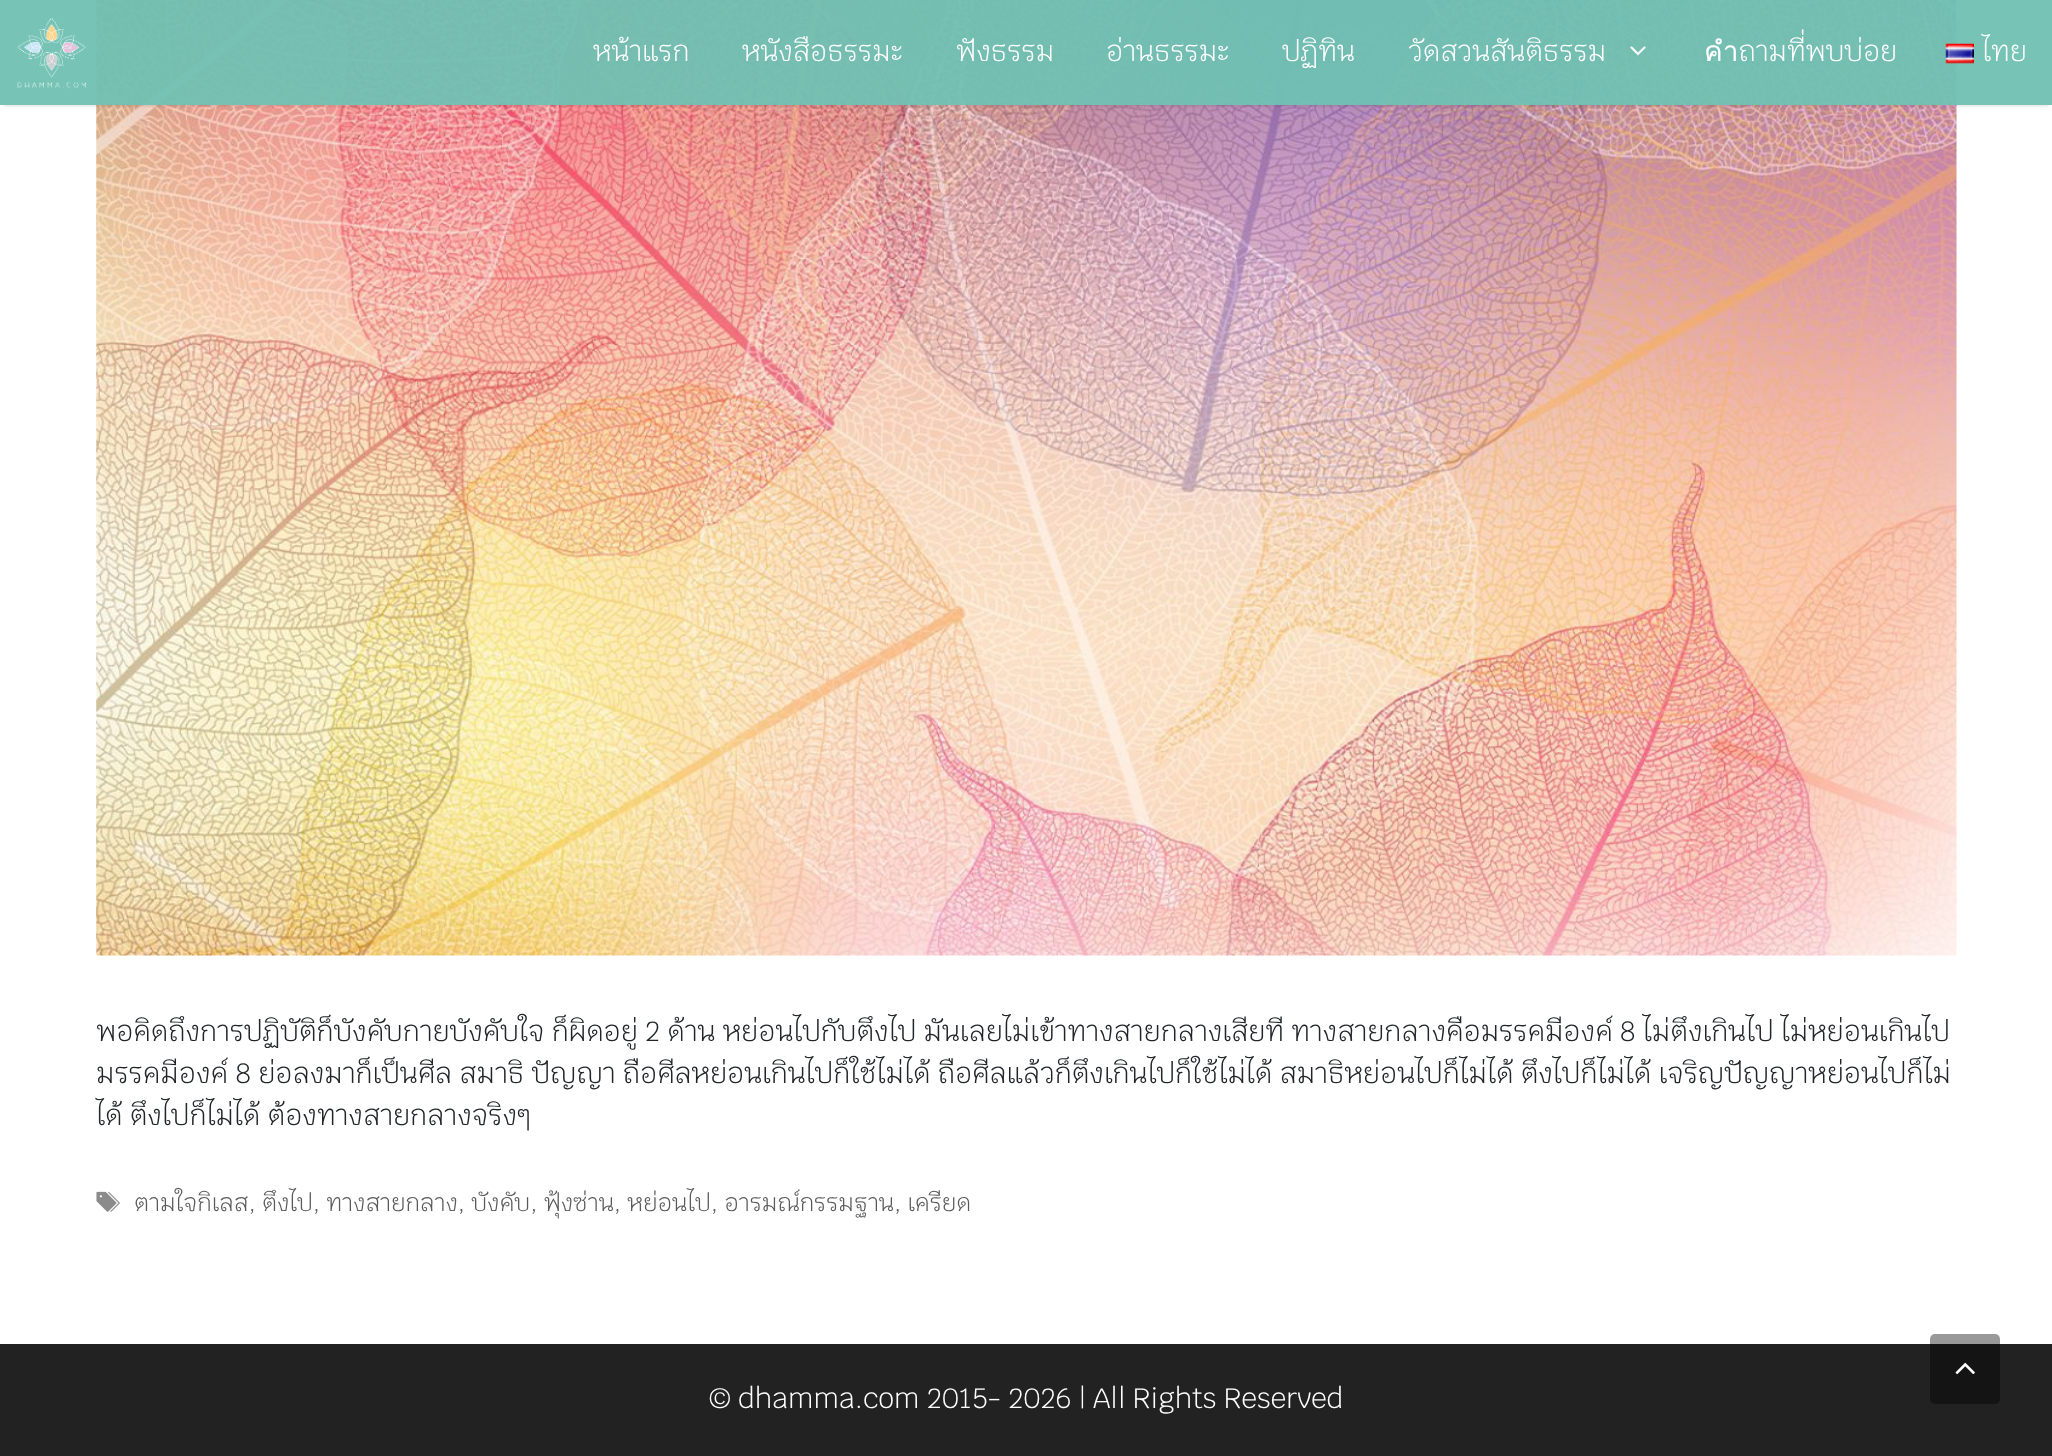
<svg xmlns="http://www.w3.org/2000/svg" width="2052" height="1456">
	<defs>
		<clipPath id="clip1"><rect x="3" y="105" width="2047" height="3" /></clipPath>
	</defs>
	<rect width="100%" height="100%" fill="#FFFFFF" />
	<image x="96" y="0" width="1861" height="956" href="assets/img4.png" />
	<g clip-path="url(#clip1)">
		<rect x="4" y="7" width="2045" height="98" fill="#000000" fill-opacity="0.2" filter="blur(2px)" />
	</g>
	<rect x="0" y="0" width="2052" height="105" fill="#70C1B3" fill-opacity="0.95" />
	<image x="17" y="18" width="69" height="71" href="assets/img1.png" />
	<g font-family="Krub" font-size="28" font-weight="300" fill="#FFFFFF">
		<text x="593" y="61">หน้าแรก</text>
		<text x="742" y="61">หนังสือธรรมะ</text>
		<text x="956" y="61">ฟังธรรม</text>
		<text x="1106" y="61">อ่านธรรมะ</text>
		<text x="1282" y="61">ปฏิทิน</text>
		<text x="1408" y="61">วัดสวนสันติธรรม</text>
	</g>
	<image x="1630" y="46" width="16" height="10" href="assets/img2.png" />
	<text x="1704" y="61" font-family="Krub" font-size="28" font-weight="300" fill="#FFFFFF">คำถามที่พบบ่อย</text>
	<image x="1945" y="43" width="29" height="21" href="assets/img3.png" />
	<text x="1982" y="61" font-family="Krub" font-size="28" font-weight="300" fill="#FFFFFF">ไทย</text>
	<g font-family="Krub" font-size="28" font-weight="300" fill="#212529">
		<text x="96" y="1041">พอคิดถึงการปฏิบัติก็บังคับกายบังคับใจ ก็ผิดอยู่ 2 ด้าน หย่อนไปกับตึงไป มันเลยไม่เข้าทางสายกลางเสียที ทางสายกลางคือมรรคมีองค์ 8 ไม่ตึงเกินไป ไม่หย่อนเกินไป</text>
		<text x="96" y="1083">มรรคมีองค์ 8 ย่อลงมาก็เป็นศีล สมาธิ ปัญญา ถือศีลหย่อนเกินไปก็ใช้ไม่ได้ ถือศีลแล้วก็ตึงเกินไปก็ใช้ไม่ได้ สมาธิหย่อนไปก็ไม่ได้ ตึงไปก็ไม่ได้ เจริญปัญญาหย่อนไปก็ไม่</text>
		<text x="96" y="1125">ได้ ตึงไปก็ไม่ได้ ต้องทางสายกลางจริงๆ</text>
	</g>
	<image x="96" y="1191" width="24" height="21" href="assets/img5.png" />
	<text x="134" y="1211" font-family="Krub" font-size="23.8" font-weight="300" fill="#595959">ตามใจกิเลส, ตึงไป, ทางสายกลาง, บังคับ, ฟุ้งซ่าน, หย่อนไป, อารมณ์กรรมฐาน, เครียด</text>
	<rect x="0" y="1344" width="2052" height="112" fill="#222222" />
	<text x="709" y="1408" font-family="Krub" font-size="28" font-weight="300" fill="#FFFFFF">© dhamma.com 2015- 2026 | All Rights Reserved</text>
	<rect x="1930" y="1334" width="70" height="70" rx="5" fill="#000000" fill-opacity="0.4" />
	<image x="1955" y="1362" width="20" height="13" href="assets/img6.png" />
</svg>
